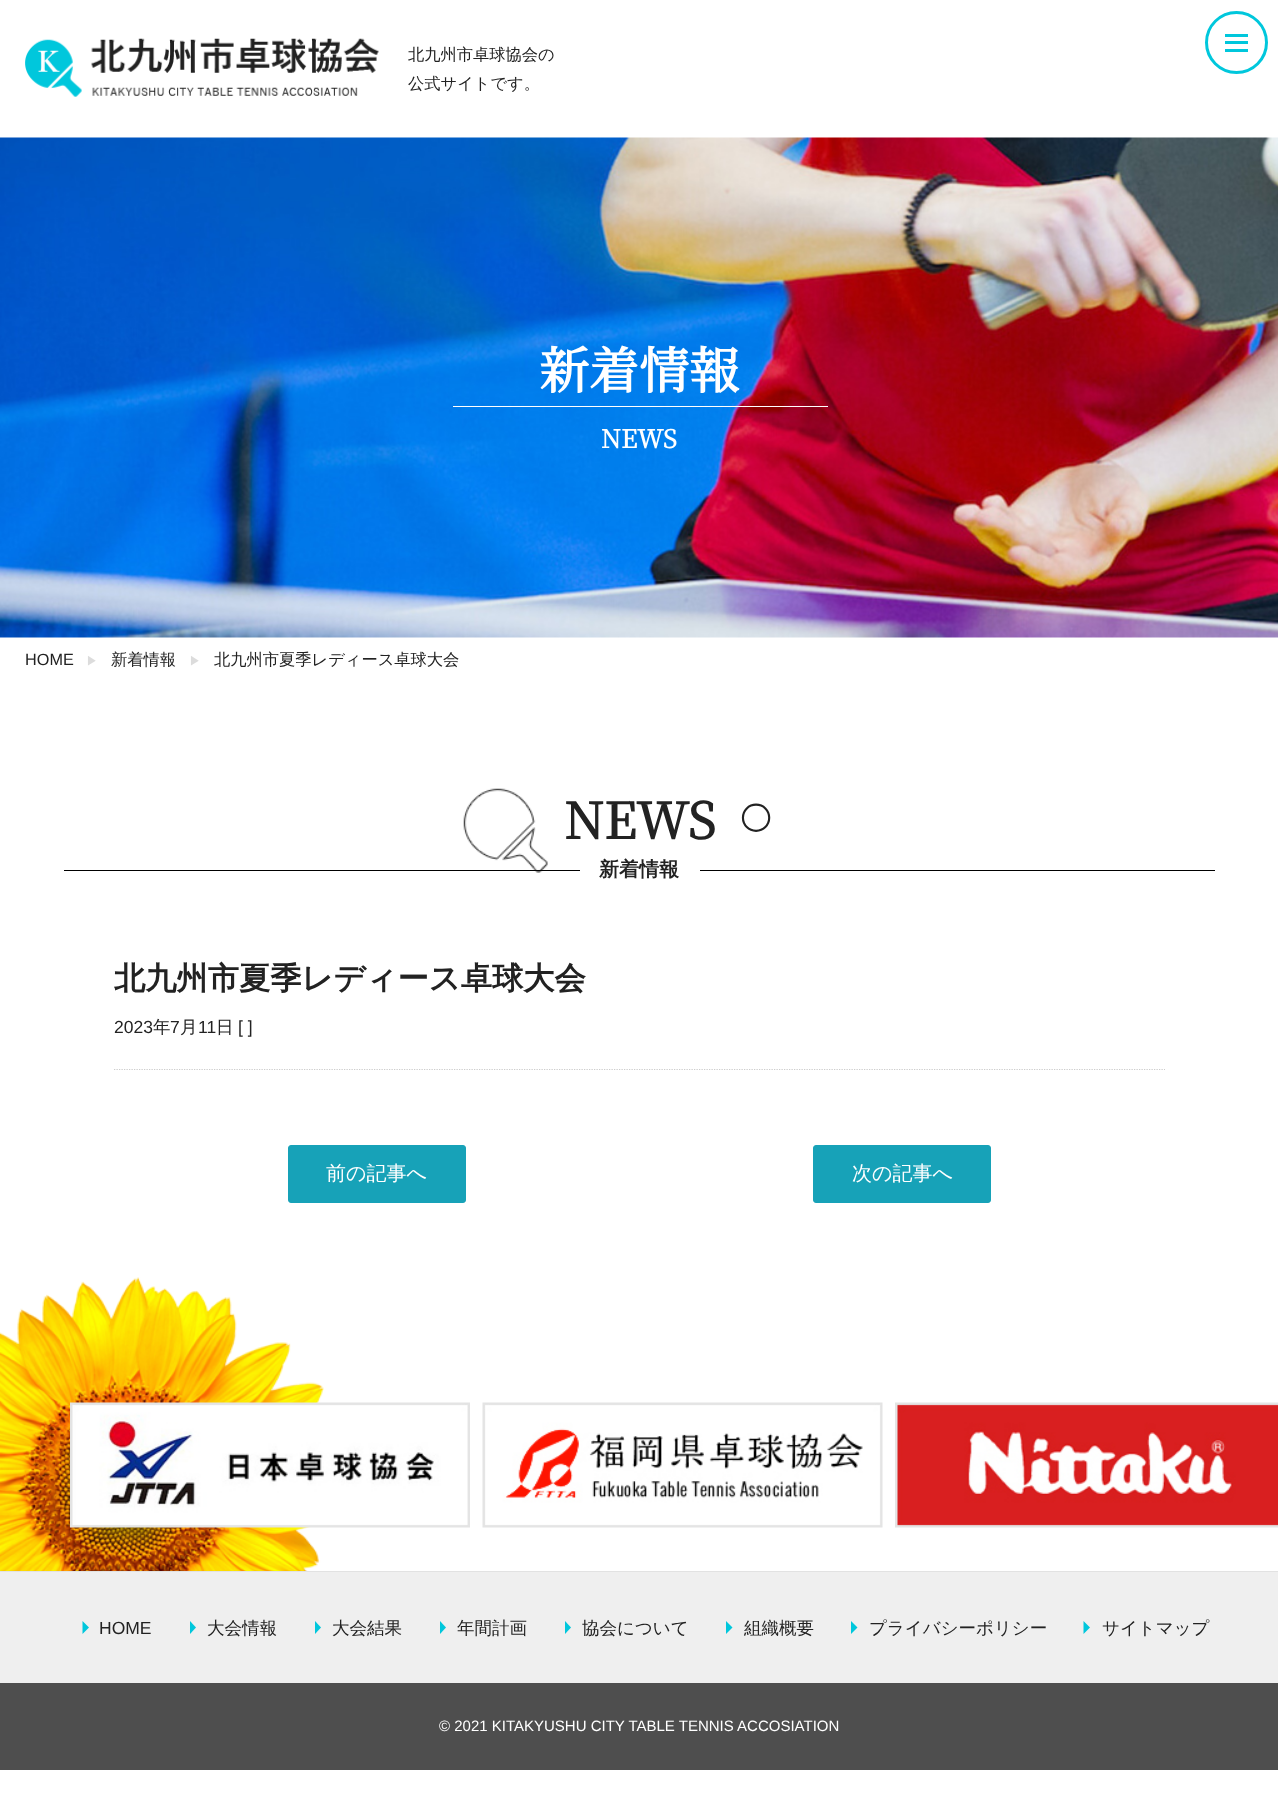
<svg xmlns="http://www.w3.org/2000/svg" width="1278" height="1795">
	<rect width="100%" height="100%" fill="#FFFFFF" />
	<image x="0" y="1277" width="324" height="294" href="assets/img1.png" />
	<image x="25" y="38" width="354" height="59" href="assets/img2.png" />
	<g font-family="WenQuanYi Zen Hei" font-size="16.25" font-weight="500" fill="#222222">
		<text x="408" y="60">北九州市卓球協会の</text>
		<text x="408" y="89">公式サイトです。</text>
	</g>
	<circle cx="1236.5" cy="42.5" r="30" fill="none" stroke="#00C7DC" stroke-width="3" />
	<rect x="1225" y="34" width="23" height="3" fill="#00C7DC" />
	<rect x="1225" y="41" width="23" height="3" fill="#00C7DC" />
	<rect x="1225" y="49" width="23" height="3" fill="#00C7DC" />
	<image x="0" y="137" width="1278" height="501" href="assets/img3.png" />
	<rect x="453" y="406" width="375" height="1" fill="#FFFFFF" />
	<text x="539" y="389" font-family="Noto Serif JP" font-size="50" font-weight="700" fill="#FFFFFF">新着情報</text>
	<text x="601" y="448" font-family="Noto Serif JP" font-size="25" font-weight="700" fill="#FFFFFF">NEWS</text>
	<text x="25" y="665" font-family="Liberation Sans" font-size="16.25" fill="#222222">HOME</text>
	<text x="86" y="665" font-family="WenQuanYi Zen Hei" font-size="12" font-weight="500" fill="#DCDCDC">▶</text>
	<text x="111" y="665" font-family="WenQuanYi Zen Hei" font-size="16.25" font-weight="500" fill="#222222">新着情報</text>
	<text x="189" y="665" font-family="WenQuanYi Zen Hei" font-size="12" font-weight="500" fill="#DCDCDC">▶</text>
	<text x="214" y="665" font-family="WenQuanYi Zen Hei" font-size="16.25" font-weight="500" fill="#222222">北九州市夏季レディース卓球大会</text>
	<image x="463" y="788" width="85" height="85" href="assets/img4.png" />
	<text x="564" y="839" font-family="Noto Serif JP" font-size="50" font-weight="700" fill="#222222">NEWS</text>
	<text x="740" y="830" font-family="Noto Serif JP" font-size="31.25" font-weight="700" fill="#222222">○</text>
	<rect x="64" y="870" width="1151" height="1" fill="#000000" />
	<rect x="580" y="870" width="120" height="1" fill="#FFFFFF" />
	<text x="599" y="876" font-family="WenQuanYi Zen Hei" font-size="20" font-weight="700" fill="#222222">新着情報</text>
	<path d="M114 1069.5H1165" fill="none" stroke="#CCCCCC" stroke-width="1.2" stroke-dasharray="1.25 1.25" />
	<text x="114" y="989" font-family="WenQuanYi Zen Hei" font-size="31.25" font-weight="700" fill="#222222">北九州市夏季レディース卓球大会</text>
	<text x="114" y="1033" font-family="Liberation Sans" font-size="17.5" fill="#222222">2023</text>
	<text x="153" y="1033" font-family="WenQuanYi Zen Hei" font-size="17.5" font-weight="500" fill="#222222">年</text>
	<text x="170" y="1033" font-family="Liberation Sans" font-size="17.5" fill="#222222">7</text>
	<text x="180" y="1033" font-family="WenQuanYi Zen Hei" font-size="17.5" font-weight="500" fill="#222222">月</text>
	<text x="198" y="1033" font-family="Liberation Sans" font-size="17.5" fill="#222222">11</text>
	<text x="216" y="1033" font-family="WenQuanYi Zen Hei" font-size="17.5" font-weight="500" fill="#222222">日</text>
	<text x="238" y="1033" font-family="Liberation Sans" font-size="17.5" fill="#222222">[ ]</text>
	<rect x="288.5" y="1145.5" width="177" height="57" rx="2.5" fill="#17A2B8" stroke="#17A2B8" />
	<text x="326" y="1180" font-family="WenQuanYi Zen Hei" font-size="20" font-weight="500" fill="#FFFFFF">前の記事へ</text>
	<rect x="813.5" y="1145.5" width="177" height="57" rx="2.5" fill="#17A2B8" stroke="#17A2B8" />
	<text x="852" y="1180" font-family="WenQuanYi Zen Hei" font-size="20" font-weight="500" fill="#FFFFFF">次の記事へ</text>
	<image x="70" y="1402" width="400" height="126" href="assets/img5.png" />
	<image x="482" y="1402" width="401" height="126" href="assets/img6.png" />
	<image x="895" y="1402" width="383" height="126" href="assets/img7.png" />
	<rect x="0" y="1572" width="1278" height="111" fill="#EFEFEF" />
	<rect x="0" y="1571" width="1278" height="1" fill="#E2E2E2" />
	<path d="M82.5 1634V1621L89 1627.5Z" fill="#00C7DC" />
	<text x="99" y="1634" font-family="Liberation Sans" font-size="17.5" fill="#222222">HOME</text>
	<path d="M190 1634V1621L196 1627.5Z" fill="#00C7DC" />
	<text x="207" y="1634" font-family="WenQuanYi Zen Hei" font-size="17.5" font-weight="500" fill="#222222">大会情報</text>
	<path d="M315 1634V1621L321 1627.5Z" fill="#00C7DC" />
	<text x="332" y="1634" font-family="WenQuanYi Zen Hei" font-size="17.5" font-weight="500" fill="#222222">大会結果</text>
	<path d="M440 1634V1621L446 1627.5Z" fill="#00C7DC" />
	<text x="457" y="1634" font-family="WenQuanYi Zen Hei" font-size="17.5" font-weight="500" fill="#222222">年間計画</text>
	<path d="M565 1634V1621L571 1627.5Z" fill="#00C7DC" />
	<text x="582" y="1634" font-family="WenQuanYi Zen Hei" font-size="17.5" font-weight="500" fill="#222222">協会について</text>
	<path d="M726 1634V1621L732.5 1627.5Z" fill="#00C7DC" />
	<text x="744" y="1634" font-family="WenQuanYi Zen Hei" font-size="17.5" font-weight="500" fill="#222222">組織概要</text>
	<path d="M851 1634V1621L857.5 1627.5Z" fill="#00C7DC" />
	<text x="869" y="1634" font-family="WenQuanYi Zen Hei" font-size="17.5" font-weight="500" fill="#222222">プライバシーポリシー</text>
	<path d="M1083.5 1634V1621L1090 1627.5Z" fill="#00C7DC" />
	<text x="1102" y="1634" font-family="WenQuanYi Zen Hei" font-size="17.5" font-weight="500" fill="#222222">サイトマップ</text>
	<rect x="0" y="1683" width="1278" height="87" fill="#4E4E4E" />
	<text x="439" y="1731" font-family="Liberation Sans" font-size="15" fill="#FFFFFF">© 2021 KITAKYUSHU CITY TABLE TENNIS ACCOSIATION</text>
</svg>
